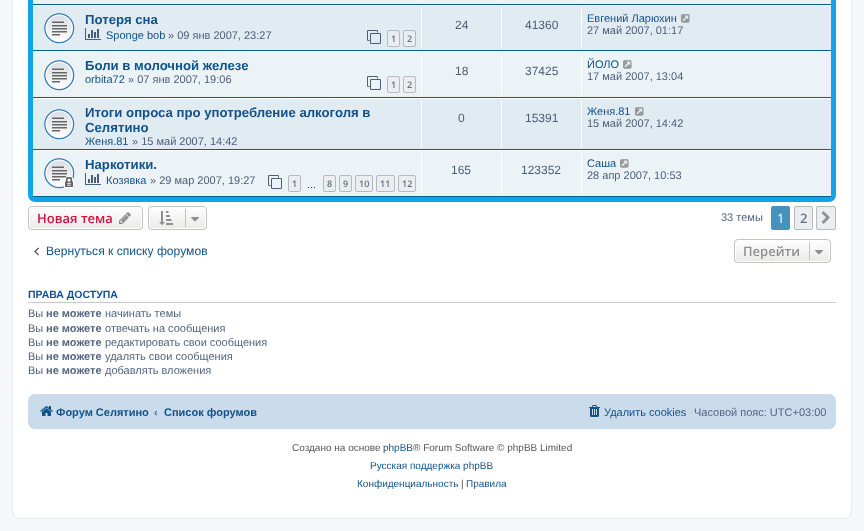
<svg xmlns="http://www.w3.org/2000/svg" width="864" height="531">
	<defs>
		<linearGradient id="g1" gradientUnits="userSpaceOnUse" x1="432" y1="-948" x2="432" y2="202"><stop offset="0" stop-color="#6ACEFF" /><stop offset="0" stop-color="#0076B1" /><stop offset="0.08" stop-color="#12A3EB" /><stop offset="1" stop-color="#12A3EB" /></linearGradient>
		<clipPath id="clip1"><rect x="28" y="206" width="115" height="24" rx="4" /></clipPath>
		<linearGradient id="g2" gradientUnits="userSpaceOnUse" x1="86" y1="207" x2="86" y2="229"><stop offset="0" stop-color="#FFFFFF" /><stop offset="1" stop-color="#E9E9E9" /></linearGradient>
		<clipPath id="clip2"><rect x="148" y="206" width="59" height="24" rx="4" /></clipPath>
		<linearGradient id="g3" gradientUnits="userSpaceOnUse" x1="178" y1="207" x2="178" y2="229"><stop offset="0" stop-color="#FFFFFF" /><stop offset="1" stop-color="#E9E9E9" /></linearGradient>
		<clipPath id="clip3"><rect x="734" y="239" width="97" height="24" rx="4" /></clipPath>
		<linearGradient id="g4" gradientUnits="userSpaceOnUse" x1="783" y1="240" x2="783" y2="262"><stop offset="0" stop-color="#FFFFFF" /><stop offset="1" stop-color="#E9E9E9" /></linearGradient>
	</defs>
	<rect width="100%" height="100%" fill="#F5F7FA" />
	<rect x="12.5" y="-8.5" width="839" height="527" rx="7.5" fill="#FFFFFF" stroke="#E6E9ED" />
	<rect x="28" y="-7" width="808" height="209" rx="7" fill="url(#g1)" />
	<rect x="33" y="0" width="798" height="4" fill="#ECF3F7" />
	<rect x="33" y="4" width="798" height="1" fill="#00608F" />
	<rect x="421" y="0" width="1" height="2" fill="#FFFFFF" />
	<rect x="501" y="0" width="1" height="2" fill="#FFFFFF" />
	<rect x="581" y="0" width="1" height="2" fill="#FFFFFF" />
	<rect x="33" y="6" width="798" height="44" fill="#E1EBF2" />
	<rect x="33" y="5" width="798" height="1" fill="#FFFFFF" />
	<rect x="33" y="50" width="798" height="1" fill="#00608F" />
	<image x="44" y="13" width="31" height="31" href="assets/img1.png" />
	<text x="85" y="24" font-family="Liberation Sans" font-size="13.2" font-weight="700" fill="#105289">Потеря сна</text>
	<image x="85" y="28" width="16" height="12" href="assets/img2.png" />
	<text x="106" y="39" font-family="Liberation Sans" font-size="11" fill="#105289">Sponge bob</text>
	<text x="168" y="39" font-family="Liberation Sans" font-size="11" fill="#4C5D77">» 09 янв 2007, 23:27</text>
	<image x="367" y="30" width="14" height="14" href="assets/img3.png" />
	<rect x="387.5" y="30.5" width="12" height="16" rx="1.5" fill="#ECEDEE" stroke="#B4BAC0" />
	<text x="391" y="42" font-family="Open Sans" font-size="9" font-weight="600" fill="#5C758C">1</text>
	<rect x="403.5" y="30.5" width="12" height="16" rx="1.5" fill="#ECEDEE" stroke="#B4BAC0" />
	<text x="407" y="42" font-family="Open Sans" font-size="9" font-weight="600" fill="#5C758C">2</text>
	<rect x="421" y="8" width="1" height="40" fill="#FFFFFF" />
	<text x="455" y="29" font-family="Liberation Sans" font-size="12" fill="#4C5D77">24</text>
	<rect x="501" y="8" width="1" height="40" fill="#FFFFFF" />
	<text x="525" y="29" font-family="Liberation Sans" font-size="12" fill="#4C5D77">41360</text>
	<rect x="581" y="8" width="1" height="40" fill="#FFFFFF" />
	<text x="587" y="22" font-family="Liberation Sans" font-size="11" fill="#105289">Евгений Ларюхин</text>
	<image x="681" y="14" width="9" height="9" href="assets/img4.png" />
	<text x="587" y="34" font-family="Liberation Sans" font-size="11" fill="#4C5D77">27 май 2007, 01:17</text>
	<rect x="33" y="52" width="798" height="45" fill="#ECF3F7" />
	<rect x="33" y="51" width="798" height="1" fill="#FFFFFF" />
	<rect x="33" y="97" width="798" height="1" fill="#00608F" />
	<image x="44" y="60" width="31" height="31" href="assets/img5.png" />
	<text x="85" y="70" font-family="Liberation Sans" font-size="13.2" font-weight="700" fill="#105289">Боли в молочной железе</text>
	<text x="85" y="83" font-family="Liberation Sans" font-size="11" fill="#105289">orbita72</text>
	<text x="128" y="83" font-family="Liberation Sans" font-size="11" fill="#4C5D77">» 07 янв 2007, 19:06</text>
	<image x="367" y="76" width="14" height="14" href="assets/img6.png" />
	<rect x="387.5" y="76.5" width="12" height="16" rx="1.5" fill="#ECEDEE" stroke="#B4BAC0" />
	<text x="391" y="88" font-family="Open Sans" font-size="9" font-weight="600" fill="#5C758C">1</text>
	<rect x="403.5" y="76.5" width="12" height="16" rx="1.5" fill="#ECEDEE" stroke="#B4BAC0" />
	<text x="407" y="88" font-family="Open Sans" font-size="9" font-weight="600" fill="#5C758C">2</text>
	<rect x="421" y="54" width="1" height="41" fill="#FFFFFF" />
	<text x="455" y="75" font-family="Liberation Sans" font-size="12" fill="#4C5D77">18</text>
	<rect x="501" y="54" width="1" height="41" fill="#FFFFFF" />
	<text x="525" y="75" font-family="Liberation Sans" font-size="12" fill="#4C5D77">37425</text>
	<rect x="581" y="54" width="1" height="41" fill="#FFFFFF" />
	<text x="587" y="68" font-family="Liberation Sans" font-size="11" fill="#105289">ЙОЛО</text>
	<image x="623" y="60" width="9" height="9" href="assets/img7.png" />
	<text x="587" y="80" font-family="Liberation Sans" font-size="11" fill="#4C5D77">17 май 2007, 13:04</text>
	<rect x="33" y="99" width="798" height="50" fill="#E1EBF2" />
	<rect x="33" y="98" width="798" height="1" fill="#FFFFFF" />
	<rect x="33" y="149" width="798" height="1" fill="#00608F" />
	<image x="44" y="109" width="31" height="31" href="assets/img1.png" />
	<g font-family="Liberation Sans" font-size="13.2" font-weight="700" fill="#105289">
		<text x="85" y="117">Итоги опроса про употребление алкоголя в</text>
		<text x="85" y="132">Селятино</text>
	</g>
	<text x="85" y="145" font-family="Liberation Sans" font-size="11" fill="#105289">Женя.81</text>
	<text x="132" y="145" font-family="Liberation Sans" font-size="11" fill="#4C5D77">» 15 май 2007, 14:42</text>
	<rect x="421" y="101" width="1" height="46" fill="#FFFFFF" />
	<text x="458" y="122" font-family="Liberation Sans" font-size="12" fill="#4C5D77">0</text>
	<rect x="501" y="101" width="1" height="46" fill="#FFFFFF" />
	<text x="525" y="122" font-family="Liberation Sans" font-size="12" fill="#4C5D77">15391</text>
	<rect x="581" y="101" width="1" height="46" fill="#FFFFFF" />
	<text x="587" y="115" font-family="Liberation Sans" font-size="11" fill="#105289">Женя.81</text>
	<image x="635" y="107" width="9" height="9" href="assets/img4.png" />
	<text x="587" y="127" font-family="Liberation Sans" font-size="11" fill="#4C5D77">15 май 2007, 14:42</text>
	<rect x="33" y="151" width="798" height="45" fill="#ECF3F7" />
	<rect x="33" y="150" width="798" height="1" fill="#FFFFFF" />
	<rect x="33" y="196" width="798" height="1" fill="#00608F" />
	<image x="44" y="158" width="31" height="31" href="assets/img8.png" />
	<text x="85" y="169" font-family="Liberation Sans" font-size="13.2" font-weight="700" fill="#105289">Наркотики.</text>
	<image x="85" y="173" width="16" height="12" href="assets/img9.png" />
	<text x="106" y="184" font-family="Liberation Sans" font-size="11" fill="#105289">Козявка</text>
	<text x="150" y="184" font-family="Liberation Sans" font-size="11" fill="#4C5D77">» 29 мар 2007, 19:27</text>
	<image x="268" y="175" width="14" height="14" href="assets/img6.png" />
	<rect x="288.5" y="175.5" width="12" height="16" rx="1.5" fill="#ECEDEE" stroke="#B4BAC0" />
	<text x="292" y="187" font-family="Open Sans" font-size="9" font-weight="600" fill="#5C758C">1</text>
	<rect x="323.5" y="175.5" width="12" height="16" rx="1.5" fill="#ECEDEE" stroke="#B4BAC0" />
	<text x="327" y="187" font-family="Open Sans" font-size="9" font-weight="600" fill="#5C758C">8</text>
	<rect x="339.5" y="175.5" width="12" height="16" rx="1.5" fill="#ECEDEE" stroke="#B4BAC0" />
	<text x="343" y="187" font-family="Open Sans" font-size="9" font-weight="600" fill="#5C758C">9</text>
	<rect x="355.5" y="175.5" width="17" height="16" rx="1.5" fill="#ECEDEE" stroke="#B4BAC0" />
	<text x="359" y="187" font-family="Open Sans" font-size="9" font-weight="600" fill="#5C758C">10</text>
	<rect x="376.5" y="175.5" width="18" height="16" rx="1.5" fill="#ECEDEE" stroke="#B4BAC0" />
	<text x="380" y="187" font-family="Open Sans" font-size="9" font-weight="600" fill="#5C758C">11</text>
	<rect x="398.5" y="175.5" width="17" height="16" rx="1.5" fill="#ECEDEE" stroke="#B4BAC0" />
	<text x="402" y="187" font-family="Open Sans" font-size="9" font-weight="600" fill="#5C758C">12</text>
	<text x="307" y="188" font-family="Liberation Sans" font-size="9" fill="#000000">…</text>
	<rect x="421" y="153" width="1" height="41" fill="#FFFFFF" />
	<text x="451" y="174" font-family="Liberation Sans" font-size="12" fill="#4C5D77">165</text>
	<rect x="501" y="153" width="1" height="41" fill="#FFFFFF" />
	<text x="521" y="174" font-family="Liberation Sans" font-size="12" fill="#4C5D77">123352</text>
	<rect x="581" y="153" width="1" height="41" fill="#FFFFFF" />
	<text x="587" y="167" font-family="Liberation Sans" font-size="11" fill="#105289">Саша</text>
	<image x="620" y="159" width="9" height="9" href="assets/img7.png" />
	<text x="587" y="179" font-family="Liberation Sans" font-size="11" fill="#4C5D77">28 апр 2007, 10:53</text>
	<g clip-path="url(#clip1)">
		<rect x="28" y="207" width="115" height="22" fill="url(#g2)" />
	</g>
	<rect x="29.5" y="207.5" width="112" height="21" rx="2.5" fill="none" stroke="#FFFFFF" />
	<rect x="28.5" y="206.5" width="114" height="23" rx="3.5" fill="none" stroke="#C7C3BF" />
	<text x="37" y="223" font-family="Open Sans" font-size="13" font-weight="600" fill="#D31141">Новая тема</text>
	<image x="119" y="212" width="12" height="12" href="assets/img10.png" />
	<g clip-path="url(#clip2)">
		<rect x="148" y="207" width="59" height="22" fill="url(#g3)" />
	</g>
	<rect x="149.5" y="207.5" width="56" height="21" rx="2.5" fill="none" stroke="#FFFFFF" />
	<rect x="148.5" y="206.5" width="58" height="23" rx="3.5" fill="none" stroke="#C7C3BF" />
	<image x="159" y="211" width="14" height="14" href="assets/img11.png" />
	<rect x="185" y="209" width="1" height="18" fill="#C7C3BF" />
	<image x="191" y="217" width="8" height="5" href="assets/img12.png" />
	<text x="721" y="221" font-family="Liberation Sans" font-size="11" fill="#536482">33 темы</text>
	<rect x="771.5" y="206.5" width="18" height="23" rx="1.5" fill="#4692BF" stroke="#4692BF" />
	<text x="777" y="223" font-family="Open Sans" font-size="13" fill="#FFFFFF">1</text>
	<rect x="794.5" y="206.5" width="18" height="23" rx="1.5" fill="#ECEDEE" stroke="#B4BAC0" />
	<text x="800" y="223" font-family="Open Sans" font-size="13" font-weight="600" fill="#5C758C">2</text>
	<rect x="816.5" y="206.5" width="19" height="23" rx="1.5" fill="#ECEDEE" stroke="#B4BAC0" />
	<image x="821" y="211" width="9" height="13" href="assets/img13.png" />
	<image x="34" y="247" width="5" height="9" href="assets/img14.png" />
	<text x="46" y="255" font-family="Liberation Sans" font-size="12.1" fill="#105289">Вернуться к списку форумов</text>
	<g clip-path="url(#clip3)">
		<rect x="734" y="240" width="97" height="22" fill="url(#g4)" />
	</g>
	<rect x="735.5" y="240.5" width="94" height="21" rx="2.5" fill="none" stroke="#FFFFFF" />
	<rect x="734.5" y="239.5" width="96" height="23" rx="3.5" fill="none" stroke="#C7C3BF" />
	<text x="743" y="256" font-family="Open Sans" font-size="13" font-weight="600" fill="#8F8F8F">Перейти</text>
	<rect x="809" y="242" width="1" height="18" fill="#C7C3BF" />
	<image x="815" y="250" width="8" height="5" href="assets/img12.png" />
	<rect x="28" y="302" width="808" height="1" fill="#CCCCCC" />
	<text x="28" y="298" font-family="Liberation Sans" font-size="10.5" font-weight="700" fill="#115098">ПРАВА ДОСТУПА</text>
	<text x="28" y="317" font-family="Liberation Sans" font-size="11" fill="#536482">Вы</text>
	<text x="46" y="317" font-family="Liberation Sans" font-size="11" font-weight="700" fill="#536482">не можете</text>
	<g font-family="Liberation Sans" font-size="11" fill="#536482">
		<text x="105" y="317">начинать темы</text>
		<text x="28" y="332">Вы</text>
	</g>
	<text x="46" y="332" font-family="Liberation Sans" font-size="11" font-weight="700" fill="#536482">не можете</text>
	<g font-family="Liberation Sans" font-size="11" fill="#536482">
		<text x="105" y="332">отвечать на сообщения</text>
		<text x="28" y="346">Вы</text>
	</g>
	<text x="46" y="346" font-family="Liberation Sans" font-size="11" font-weight="700" fill="#536482">не можете</text>
	<g font-family="Liberation Sans" font-size="11" fill="#536482">
		<text x="105" y="346">редактировать свои сообщения</text>
		<text x="28" y="360">Вы</text>
	</g>
	<text x="46" y="360" font-family="Liberation Sans" font-size="11" font-weight="700" fill="#536482">не можете</text>
	<g font-family="Liberation Sans" font-size="11" fill="#536482">
		<text x="105" y="360">удалять свои сообщения</text>
		<text x="28" y="374">Вы</text>
	</g>
	<text x="46" y="374" font-family="Liberation Sans" font-size="11" font-weight="700" fill="#536482">не можете</text>
	<text x="105" y="374" font-family="Liberation Sans" font-size="11" fill="#536482">добавлять вложения</text>
	<rect x="28" y="394" width="808" height="35" rx="7" fill="#CADCEB" />
	<image x="40" y="406" width="13" height="10" href="assets/img15.png" />
	<text x="56" y="416" font-family="Liberation Sans" font-size="11" font-weight="700" fill="#105289">Форум Селятино</text>
	<text x="154" y="416" font-family="Liberation Sans" font-size="11" font-weight="700" fill="#536482">‹</text>
	<text x="164" y="416" font-family="Liberation Sans" font-size="11" font-weight="700" fill="#105289">Список форумов</text>
	<image x="589" y="405" width="11" height="12" href="assets/img16.png" />
	<text x="604" y="416" font-family="Liberation Sans" font-size="11" fill="#105289">Удалить cookies</text>
	<text x="694" y="416" font-family="Liberation Sans" font-size="11" fill="#536482">Часовой пояс: UTC+03:00</text>
	<text x="292" y="451" font-family="Liberation Sans" font-size="10" fill="#555555">Создано на основе</text>
	<text x="383" y="451" font-family="Liberation Sans" font-size="10" fill="#105289">phpBB</text>
	<text x="413" y="451" font-family="Liberation Sans" font-size="10" fill="#555555">® Forum Software © phpBB Limited</text>
	<g font-family="Liberation Sans" font-size="10" fill="#105289">
		<text x="370" y="469">Русская поддержка phpBB</text>
		<text x="357" y="487">Конфиденциальность</text>
	</g>
	<text x="461" y="487" font-family="Liberation Sans" font-size="10" fill="#555555">|</text>
	<text x="466" y="487" font-family="Liberation Sans" font-size="10" fill="#105289">Правила</text>
</svg>
